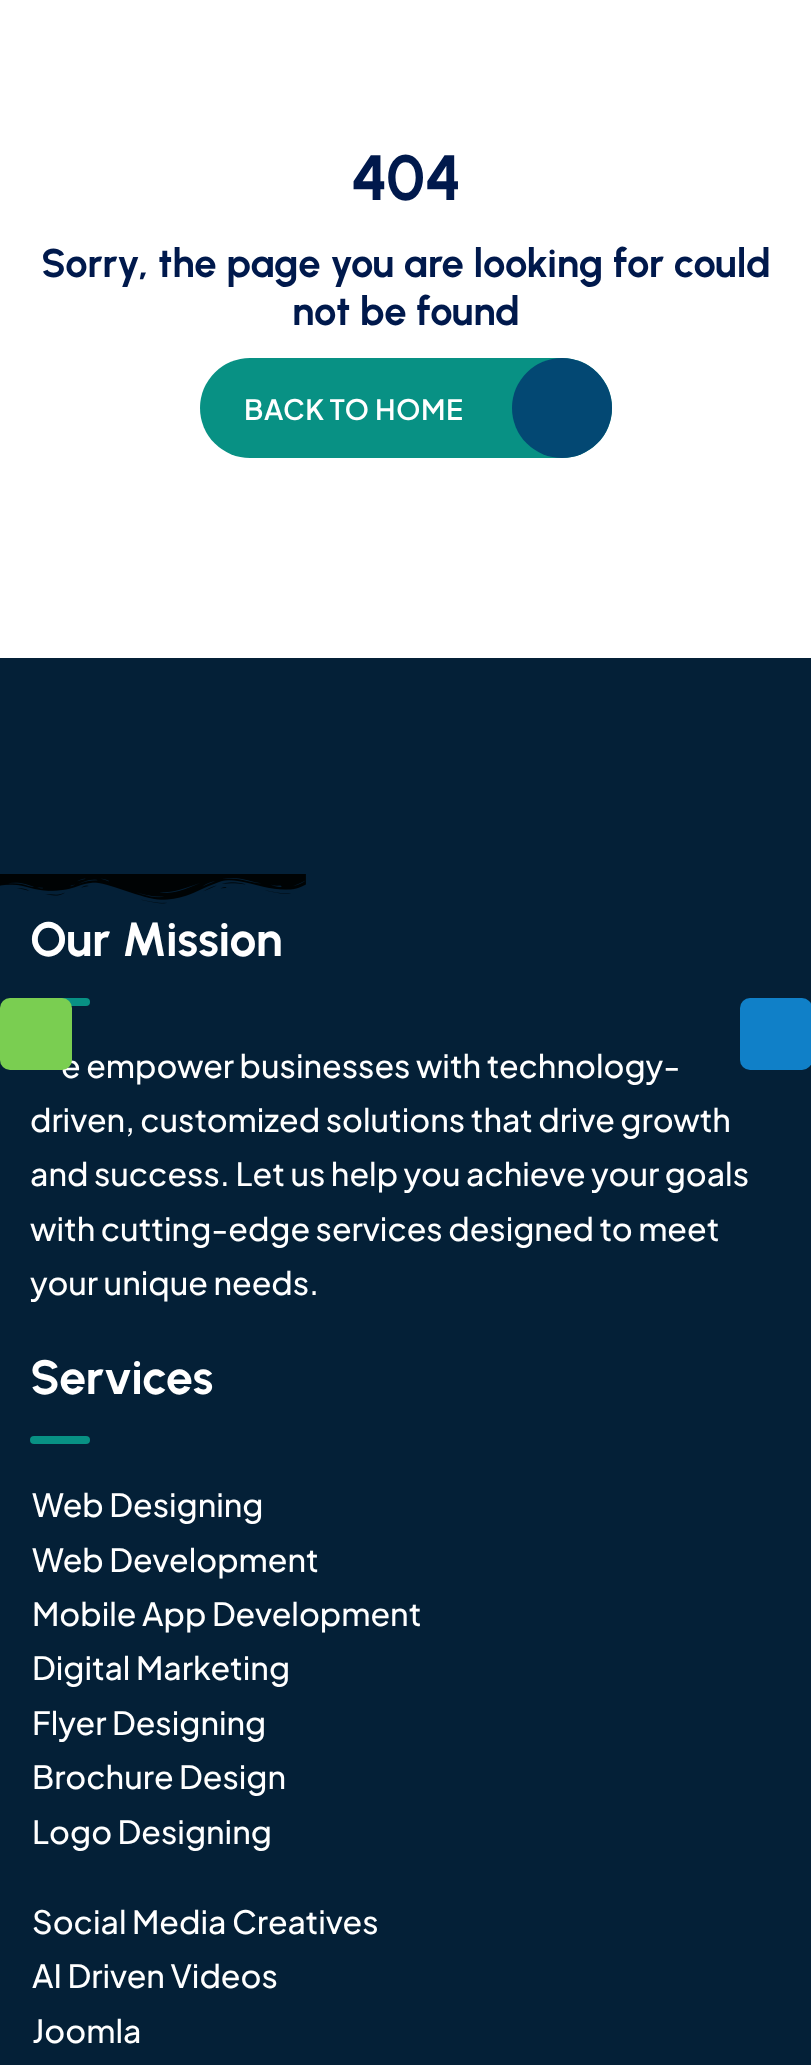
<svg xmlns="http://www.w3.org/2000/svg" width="811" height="2065">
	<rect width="100%" height="100%" fill="#FFFFFF" />
	<text x="351" y="200" font-family="Urbanist" font-size="64" font-weight="700" fill="#00194C">404</text>
	<g font-family="Urbanist" font-size="40" font-weight="700" fill="#00194C">
		<text x="41" y="277">Sorry, the page you are looking for could</text>
		<text x="292" y="325">not be found</text>
	</g>
	<rect x="200" y="358" width="412" height="100" rx="50" fill="#089184" />
	<text x="244" y="420" font-family="Plus Jakarta Sans" font-size="28" font-weight="600" letter-spacing="0.5" fill="#FFFFFF">BACK TO HOME</text>
	<circle cx="562" cy="408" r="50" fill="#034873" />
	<rect x="0" y="658" width="811" height="1407" fill="#042037" />
	<image x="0" y="874" width="306" height="30" href="assets/img1.png" />
	<text x="30" y="956" font-family="Urbanist" font-size="48" font-weight="700" fill="#FFFFFF">Our Mission</text>
	<rect x="30" y="998" width="60" height="8" rx="4" fill="#089184" />
	<g font-family="Plus Jakarta Sans" font-size="32" font-weight="500" fill="#FFFFFF">
		<text x="61" y="1078">e empower businesses with technology-</text>
		<text x="30" y="1132">driven, customized solutions that drive growth</text>
		<text x="30" y="1186">and success. Let us help you achieve your goals</text>
		<text x="30" y="1241">with cutting-edge services designed to meet</text>
		<text x="30" y="1295">your unique needs.</text>
	</g>
	<text x="30" y="1394" font-family="Urbanist" font-size="48" font-weight="700" fill="#FFFFFF">Services</text>
	<rect x="30" y="1436" width="60" height="8" rx="4" fill="#089184" />
	<g font-family="Plus Jakarta Sans" font-size="32" font-weight="500" fill="#FFFFFF">
		<text x="32" y="1517">Web Designing</text>
		<text x="32" y="1572">Web Development</text>
		<text x="32" y="1626">Mobile App Development</text>
		<text x="32" y="1680">Digital Marketing</text>
		<text x="32" y="1735">Flyer Designing</text>
		<text x="32" y="1789">Brochure Design</text>
		<text x="32" y="1844">Logo Designing</text>
		<text x="32" y="1934">Social Media Creatives</text>
		<text x="32" y="1988">AI Driven Videos</text>
		<text x="32" y="2043">Joomla</text>
	</g>
	<rect x="0" y="998" width="72" height="72" rx="10" fill="#7ACE51" />
	<rect x="740" y="998" width="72" height="72" rx="10" fill="#1080C8" />
</svg>
